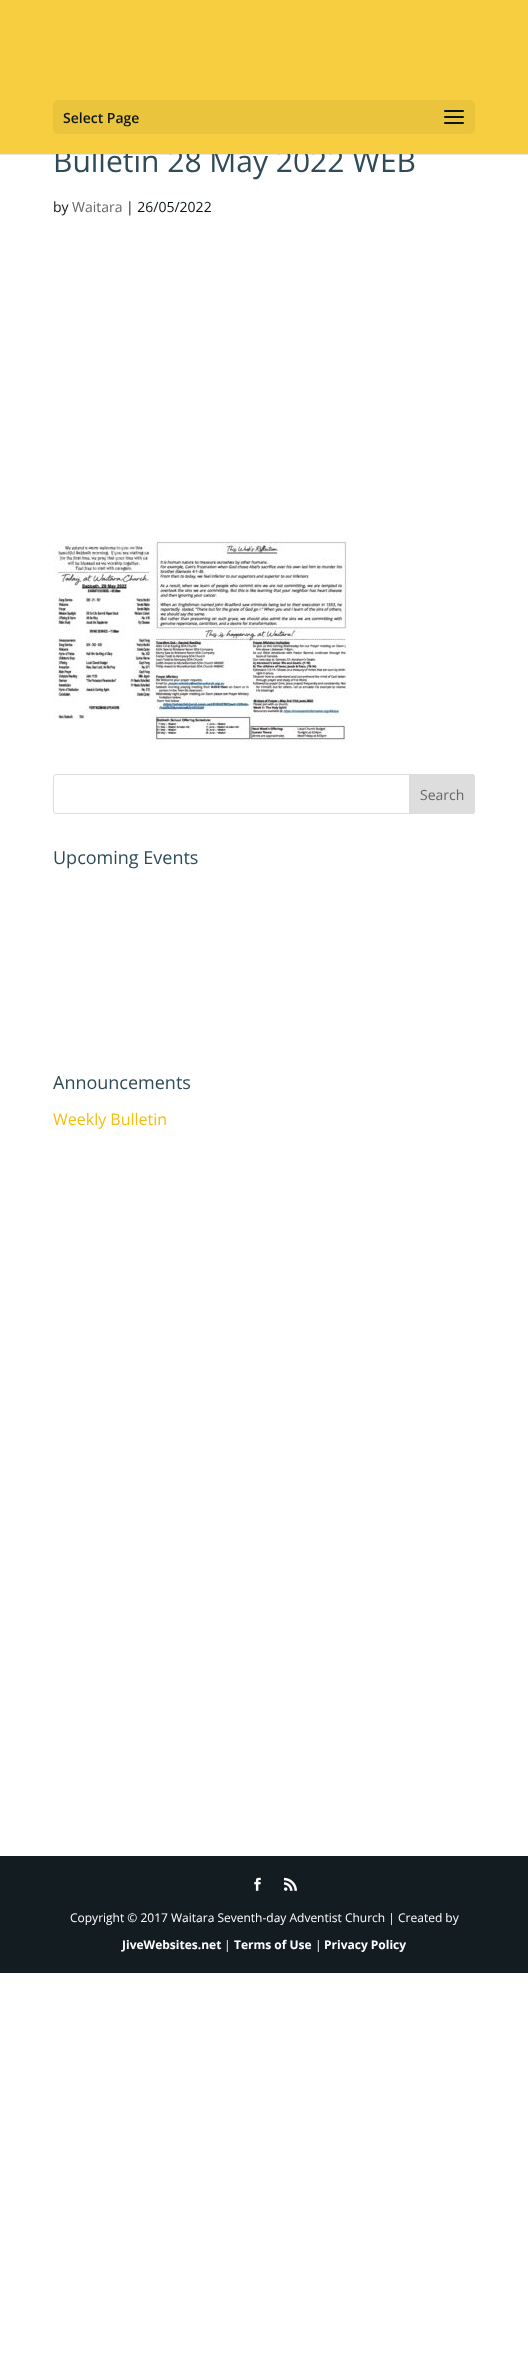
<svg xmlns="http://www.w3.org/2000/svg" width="528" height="2372">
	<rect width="100%" height="100%" fill="#FFFFFF" />
	<rect x="0" y="154" width="528" height="1" fill="#000000" fill-opacity="0.1" />
	<text x="53" y="172" font-family="Open Sans" font-size="30" fill="#2E4B57">Bulletin 28 May 2022 WEB</text>
	<rect x="0" y="0" width="528" height="154" fill="#F7CE40" />
	<rect x="53" y="100" width="422" height="34" rx="5" fill="#EBC43D" />
	<text x="63" y="123" font-family="Open Sans" font-size="14" font-weight="600" fill="#0B1612">Select Page</text>
	<image x="444" y="110" width="20" height="14" href="assets/img1.png" />
	<text x="53" y="212" font-family="Open Sans" font-size="14" fill="#0B1612">by</text>
	<text x="72" y="212" font-family="Open Sans" font-size="14" fill="#666666">Waitara</text>
	<text x="126" y="212" font-family="Open Sans" font-size="14" fill="#0B1612">| 26/05/2022</text>
	<image x="53" y="540" width="296" height="203" href="assets/img2.png" />
	<rect x="53.5" y="774.5" width="421" height="39" rx="2.5" fill="none" stroke="#DDDDDD" />
	<path d="M409.5 774.5H472C473.5 774.5 474.5 775.5 474.5 777V811C474.5 812.5 473.5 813.5 472 813.5H409.5Z" fill="#DDDDDD" stroke="#DDDDDD" />
	<text x="420" y="800" font-family="Open Sans" font-size="14" fill="#666666">Search</text>
	<g font-family="Open Sans" font-size="18" fill="#2E4B57">
		<text x="53" y="864">Upcoming Events</text>
		<text x="53" y="1089">Announcements</text>
	</g>
	<text x="53" y="1125" font-family="Open Sans" font-size="16" fill="#F6BC0E">Weekly Bulletin</text>
	<rect x="0" y="1856" width="528" height="117" fill="#121C21" />
	<image x="254" y="1877" width="7" height="14" href="assets/img3.png" />
	<image x="284" y="1877" width="13" height="14" href="assets/img4.png" />
	<text x="70" y="1922" font-family="Open Sans" font-size="12" fill="#FFFFFF">Copyright © 2017 Waitara Seventh-day Adventist Church | Created by</text>
	<text x="122" y="1949" font-family="Open Sans" font-size="12" font-weight="700" fill="#FFFFFF">JiveWebsites.net</text>
	<text x="224" y="1949" font-family="Open Sans" font-size="12" fill="#FFFFFF">|</text>
	<text x="234" y="1949" font-family="Open Sans" font-size="12" font-weight="700" fill="#FFFFFF">Terms of Use</text>
	<text x="315" y="1949" font-family="Open Sans" font-size="12" fill="#FFFFFF">|</text>
	<text x="324" y="1949" font-family="Open Sans" font-size="12" font-weight="700" fill="#FFFFFF">Privacy Policy</text>
</svg>
